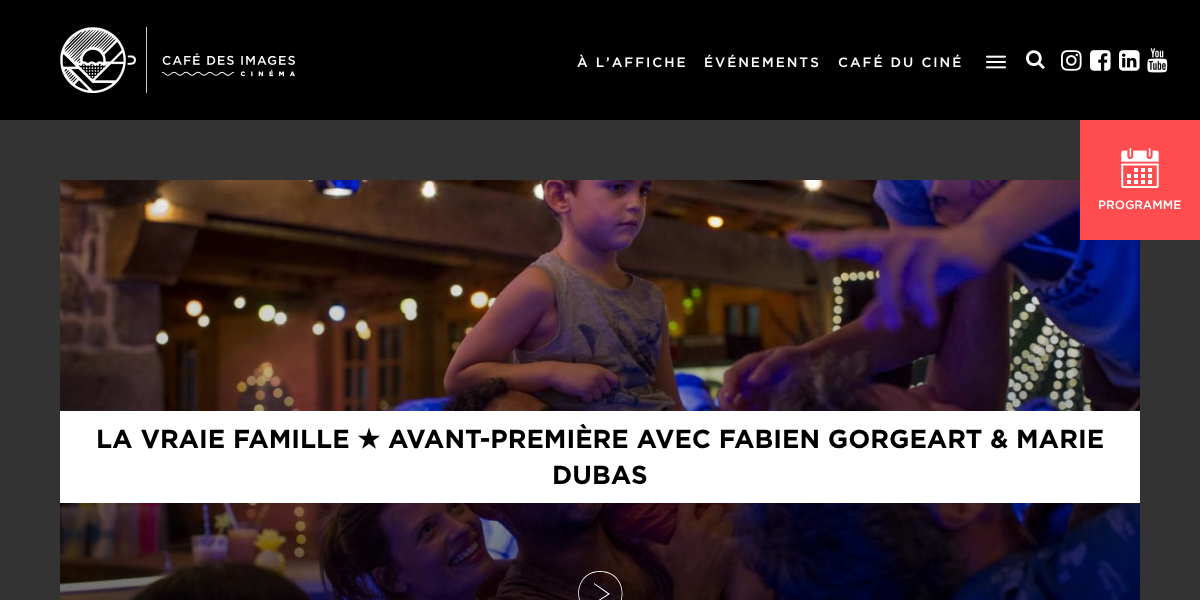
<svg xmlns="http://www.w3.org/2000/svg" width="1200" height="600">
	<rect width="100%" height="100%" fill="#333333" />
	<rect x="0" y="0" width="1200" height="120" fill="#000000" />
	<image x="60" y="27" width="235" height="66" href="assets/img1.png" />
	<g font-family="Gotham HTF" font-size="13.5" font-weight="500" letter-spacing="2" fill="#FFFFFF">
		<text x="577" y="67">À L’AFFICHE</text>
		<text x="704" y="67">ÉVÉNEMENTS</text>
		<text x="838" y="67">CAFÉ DU CINÉ</text>
	</g>
	<image x="986" y="55" width="20" height="14" href="assets/img2.png" />
	<image x="1026" y="50" width="19" height="19" href="assets/img3.png" />
	<image x="1061" y="50" width="21" height="21" href="assets/img4.png" />
	<image x="1090" y="50" width="21" height="21" href="assets/img5.png" />
	<image x="1119" y="50" width="21" height="21" href="assets/img6.png" />
	<image x="1147" y="48" width="21" height="25" href="assets/img7.png" />
	<image x="60" y="180" width="1080" height="420" href="assets/img9.png" />
	<rect x="1080" y="120" width="120" height="120" fill="#FF4C4F" />
	<image x="1121" y="148" width="38" height="40" href="assets/img8.png" />
	<text x="1098" y="209" font-family="Gotham HTF" font-size="12" font-weight="500" fill="#FFFFFF">PROGRAMME</text>
	<rect x="60" y="411" width="1080" height="92" fill="#FFFFFF" />
	<text x="96" y="448" font-family="Gotham HTF" font-size="26" font-weight="700" fill="#000000">LA VRAIE FAMILLE</text>
	<text x="357" y="448" font-family="DejaVu Sans" font-size="26" font-weight="700" fill="#000000">★</text>
	<g font-family="Gotham HTF" font-size="26" font-weight="700" fill="#000000">
		<text x="388" y="448">AVANT-PREMIÈRE AVEC FABIEN GORGEART &amp; MARIE</text>
		<text x="552" y="484">DUBAS</text>
	</g>
	<path d="M600 571C571 571 571 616 600 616C630 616 630 571 600 571ZM600 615C572 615 572 572 600 572C629 572 629 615 600 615ZM594 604L610 594L594 583ZM594 584L608 594L594 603Z" fill="#FFFFFF" />
</svg>
